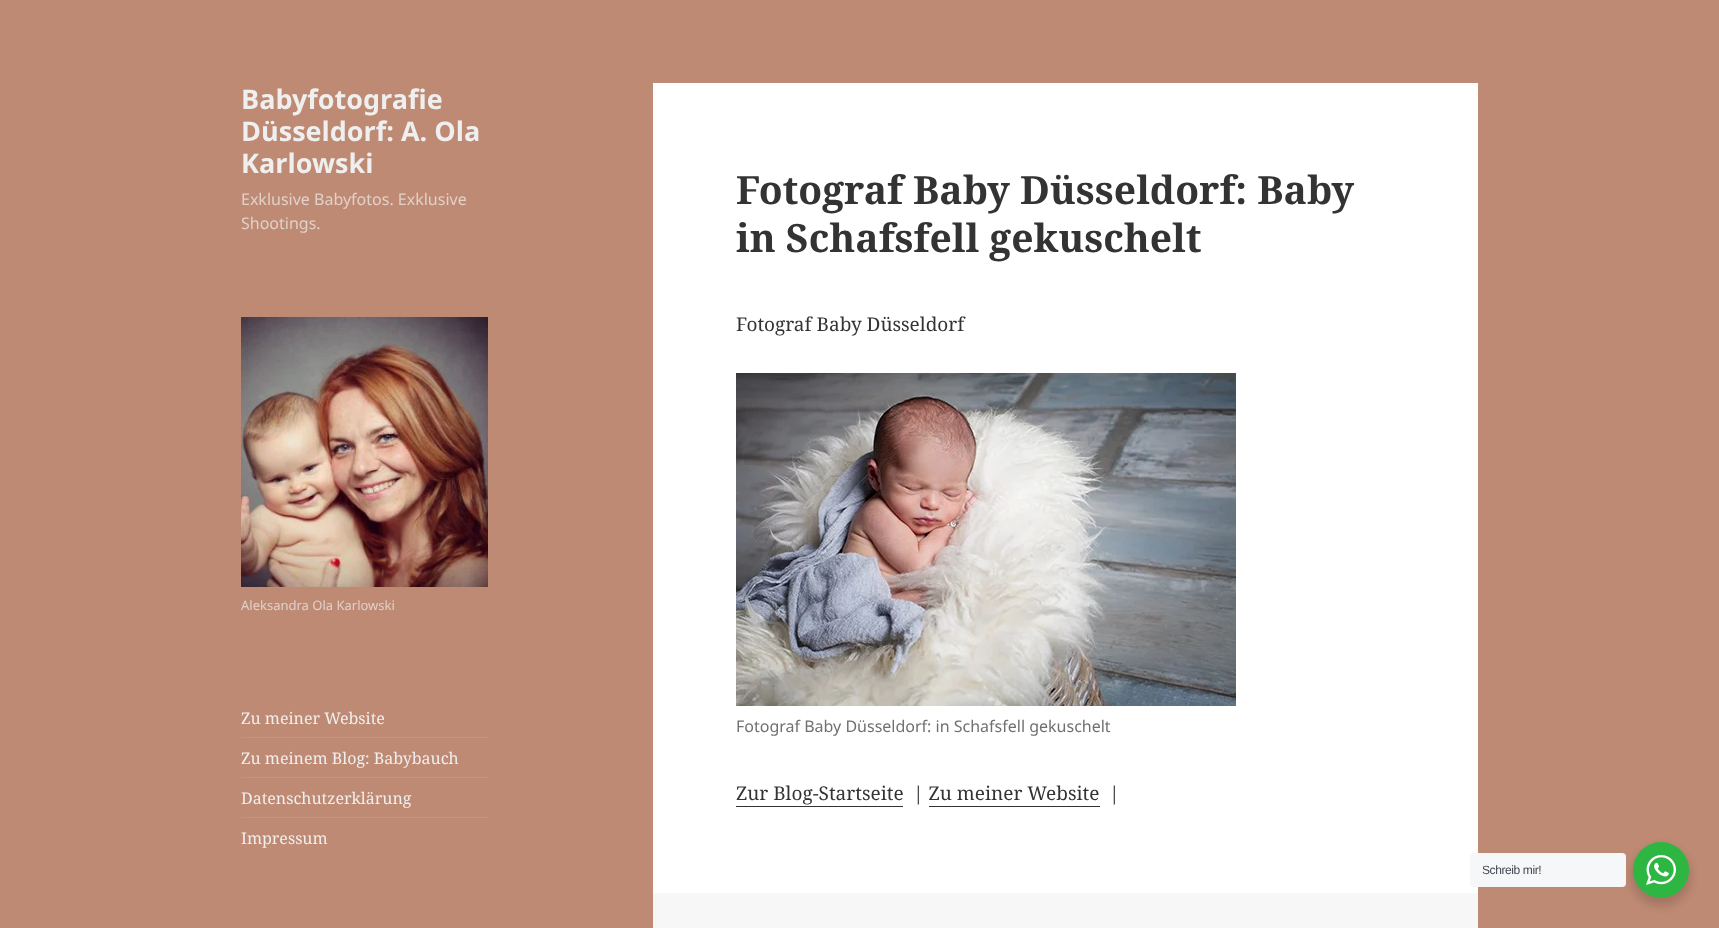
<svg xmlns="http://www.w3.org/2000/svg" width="1719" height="928">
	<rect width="100%" height="100%" fill="#BE8A73" />
	<g font-family="Noto Sans" font-size="27" font-weight="700" fill="#EFEFEF">
		<text x="241" y="109">Babyfotografie</text>
		<text x="241" y="141">Düsseldorf: A. Ola</text>
		<text x="241" y="173">Karlowski</text>
	</g>
	<g font-family="Noto Sans" font-size="16" fill="#E0D1CA">
		<text x="241" y="205">Exklusive Babyfotos. Exklusive</text>
		<text x="241" y="229">Shootings.</text>
	</g>
	<image x="241" y="317" width="247" height="270" href="assets/img1.png" />
	<text x="241" y="610" font-family="Noto Sans" font-size="13" fill="#E0D1CA">Aleksandra Ola Karlowski</text>
	<text x="241" y="724" font-family="Noto Serif" font-size="16" fill="#EFEFEF">Zu meiner Website</text>
	<rect x="241" y="737" width="247" height="1" fill="#C3947F" />
	<text x="241" y="764" font-family="Noto Serif" font-size="16" fill="#EFEFEF">Zu meinem Blog: Babybauch</text>
	<rect x="241" y="777" width="247" height="1" fill="#C3947F" />
	<text x="241" y="804" font-family="Noto Serif" font-size="16" fill="#EFEFEF">Datenschutzerklärung</text>
	<rect x="241" y="817" width="247" height="1" fill="#C3947F" />
	<text x="241" y="844" font-family="Noto Serif" font-size="16" fill="#EFEFEF">Impressum</text>
	<rect x="653" y="83" width="825" height="810" fill="#FFFFFF" />
	<g font-family="Noto Serif" font-size="39" font-weight="700" fill="#333333">
		<text x="736" y="204">Fotograf Baby Düsseldorf: Baby</text>
		<text x="736" y="252">in Schafsfell gekuschelt</text>
	</g>
	<text x="736" y="331" font-family="Noto Serif" font-size="19" fill="#333333">Fotograf Baby Düsseldorf</text>
	<image x="736" y="373" width="500" height="333" href="assets/img2.png" />
	<text x="736" y="732" font-family="Noto Sans" font-size="16" fill="#707070">Fotograf Baby Düsseldorf: in Schafsfell gekuschelt</text>
	<text x="736" y="800" font-family="Noto Serif" font-size="19" fill="#333333">Zur Blog-Startseite</text>
	<rect x="736" y="806" width="167" height="1" fill="#333333" />
	<g font-family="Noto Serif" font-size="19" fill="#333333">
		<text x="913" y="800">| Zu meiner Website</text>
		<text x="1109" y="800">|</text>
	</g>
	<rect x="929" y="806" width="171" height="1" fill="#333333" />
	<rect x="653" y="893" width="825" height="35" fill="#F7F7F7" />
	<rect x="1631" y="846" width="60" height="60" rx="30" fill="#000000" fill-opacity="0.14" filter="blur(4px)" />
	<rect x="1470" y="853" width="156" height="34" rx="4" fill="#F5F7F9" />
	<text x="1482" y="874" font-family="Liberation Sans" font-size="12" letter-spacing="-0.4" fill="#43474E">Schreib mir!</text>
	<circle cx="1661" cy="870" r="28" fill="#2DB742" />
	<image x="1646" y="855" width="30" height="30" href="assets/img3.png" />
</svg>
